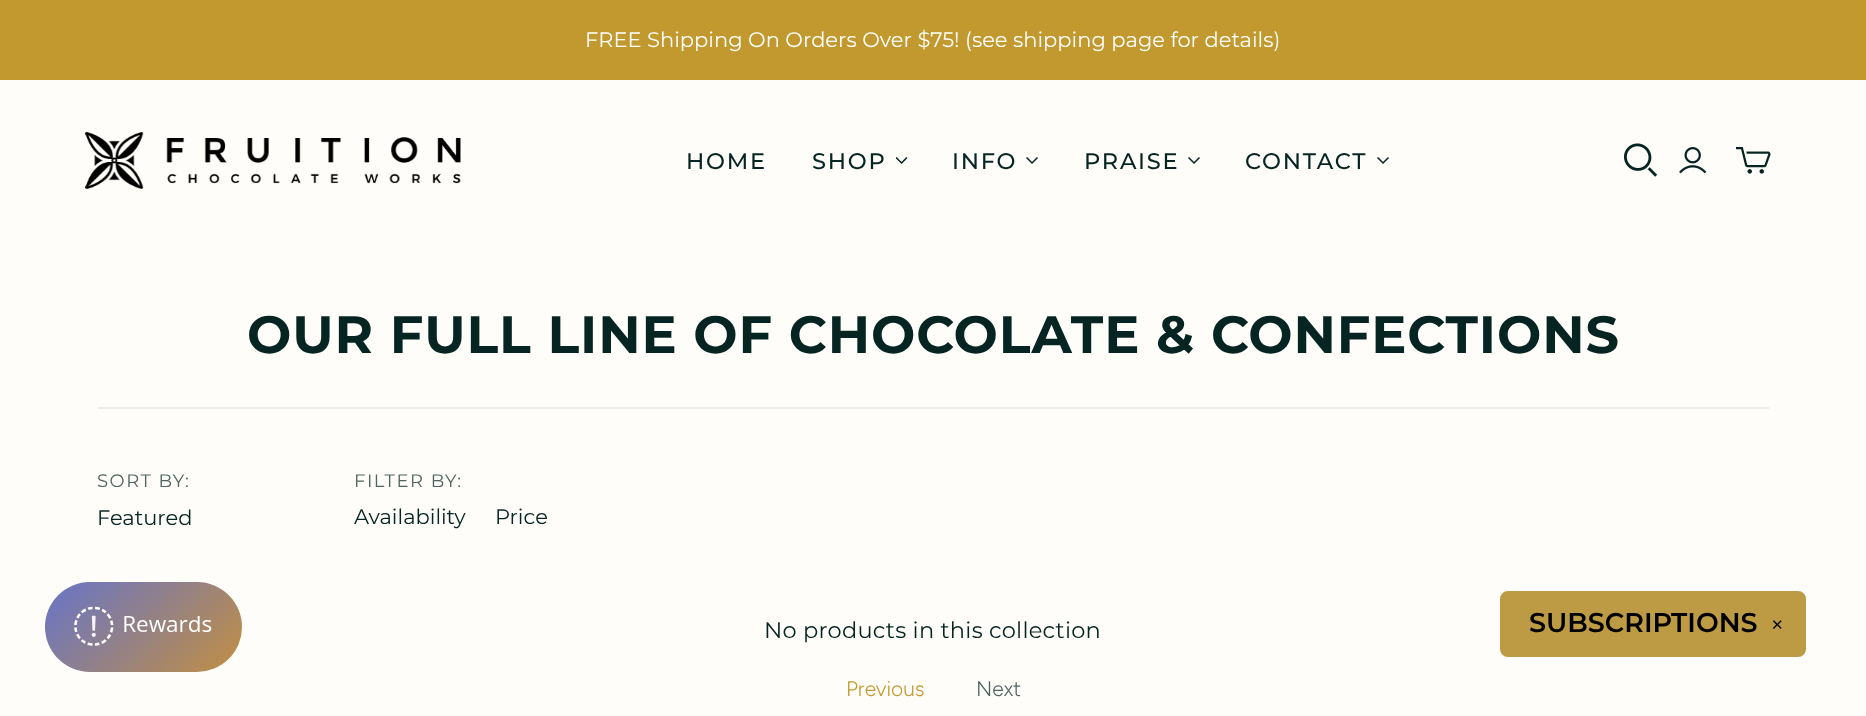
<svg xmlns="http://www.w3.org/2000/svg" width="1866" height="716">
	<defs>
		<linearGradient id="g1" gradientUnits="userSpaceOnUse" x1="72" y1="555" x2="215" y2="699"><stop offset="0" stop-color="#6774C8" /><stop offset="1" stop-color="#C28F42" /></linearGradient>
	</defs>
	<rect width="100%" height="100%" fill="#FEFDF9" />
	<rect x="0" y="0" width="1866" height="80" fill="#C2992E" />
	<text x="585" y="47" font-family="Montserrat" font-size="21" fill="#FFFFFF">FREE Shipping On Orders Over $75! (see shipping page for details)</text>
	<image x="85" y="132" width="376" height="57" href="assets/img1.png" />
	<g font-family="Montserrat" font-size="22.5" font-weight="500" letter-spacing="1.75" fill="#052422">
		<text x="686" y="169">HOME</text>
		<text x="812" y="169">SHOP</text>
	</g>
	<image x="896" y="157" width="12" height="7" href="assets/img2.png" />
	<text x="952" y="169" font-family="Montserrat" font-size="22.5" font-weight="500" letter-spacing="1.75" fill="#052422">INFO</text>
	<image x="1026" y="157" width="12" height="7" href="assets/img3.png" />
	<text x="1084" y="169" font-family="Montserrat" font-size="22.5" font-weight="500" letter-spacing="1.75" fill="#052422">PRAISE</text>
	<image x="1188" y="157" width="12" height="7" href="assets/img3.png" />
	<text x="1245" y="169" font-family="Montserrat" font-size="22.5" font-weight="500" letter-spacing="1.75" fill="#052422">CONTACT</text>
	<image x="1377" y="157" width="12" height="7" href="assets/img3.png" />
	<image x="1624" y="143" width="34" height="34" href="assets/img4.png" />
	<image x="1679" y="147" width="28" height="27" href="assets/img5.png" />
	<image x="1736" y="147" width="35" height="27" href="assets/img6.png" />
	<rect x="98" y="407" width="1671" height="2" fill="#EBEBEB" />
	<text x="247" y="353" font-family="Montserrat" font-size="52.5" font-weight="700" letter-spacing="0.9" fill="#052422">OUR FULL LINE OF CHOCOLATE &amp; CONFECTIONS</text>
	<text x="97" y="487" font-family="Montserrat" font-size="18" letter-spacing="1.5" fill="#506563">SORT BY:</text>
	<text x="97" y="525" font-family="Montserrat" font-size="21" fill="#052422">Featured</text>
	<text x="354" y="487" font-family="Montserrat" font-size="18" letter-spacing="1.5" fill="#506563">FILTER BY:</text>
	<g font-family="Montserrat" font-size="21" fill="#052422">
		<text x="354" y="524">Availability</text>
		<text x="495" y="524">Price</text>
	</g>
	<text x="764" y="638" font-family="Montserrat" font-size="22.5" letter-spacing="0.25" fill="#052422">No products in this collection</text>
	<text x="846" y="696" font-family="Figtree" font-size="21" font-weight="300" fill="#C2992E">Previous</text>
	<text x="976" y="696" font-family="Figtree" font-size="21" font-weight="300" fill="#506563">Next</text>
	<rect x="45" y="582" width="197" height="90" rx="45" fill="url(#g1)" />
	<image x="74" y="606" width="138" height="40" href="assets/img7.png" />
	<rect x="1501.5" y="592.5" width="303" height="63" rx="6.5" fill="#BC9B44" stroke="#BC9B44" stroke-width="3" />
	<text x="1529" y="632" font-family="Montserrat" font-size="27" font-weight="600" fill="#000000">SUBSCRIPTIONS</text>
	<text x="1771" y="630" font-family="DejaVu Sans" font-size="15" fill="#000000">✕</text>
</svg>
